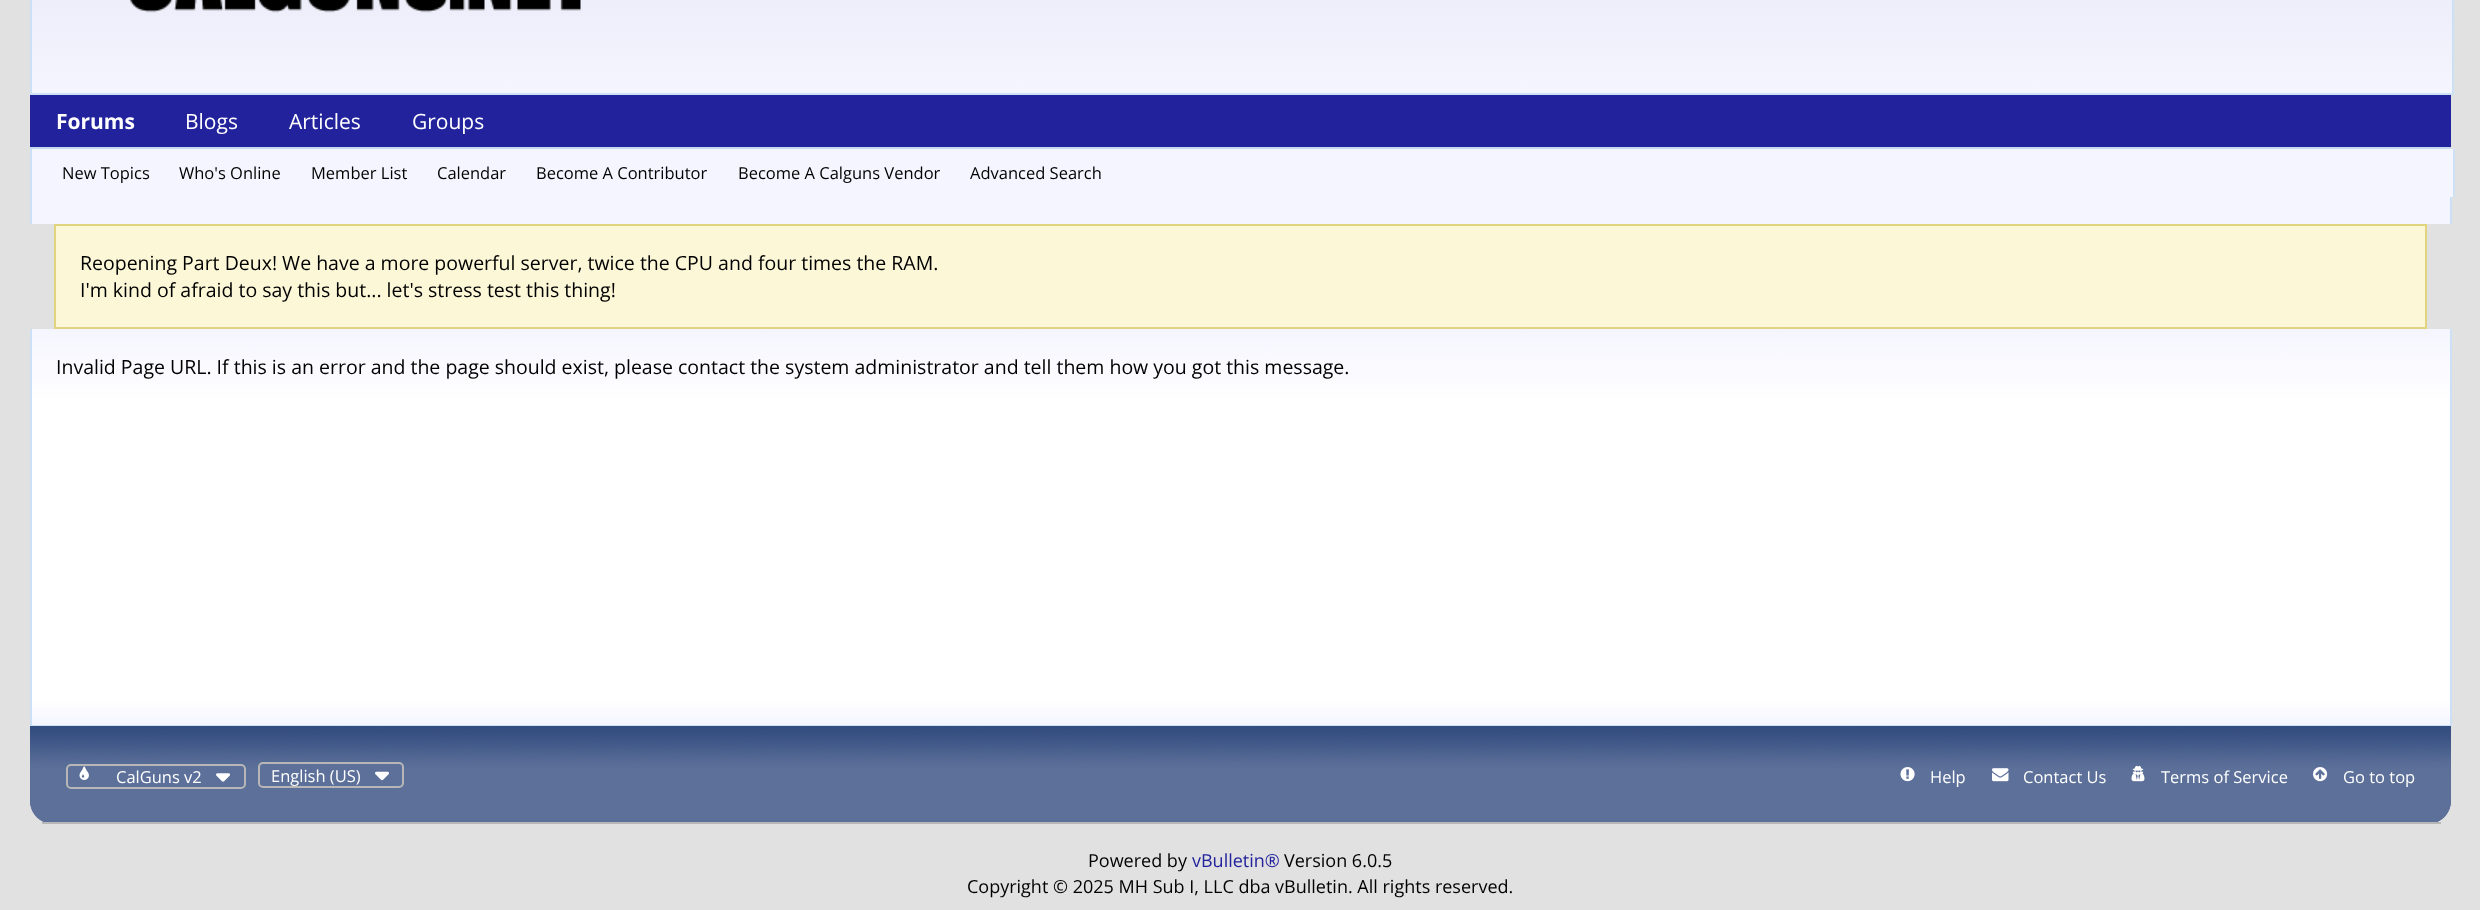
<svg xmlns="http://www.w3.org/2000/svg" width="2480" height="910">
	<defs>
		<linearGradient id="g1" gradientUnits="userSpaceOnUse" x1="1242" y1="-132" x2="1242" y2="93"><stop offset="0" stop-color="#E1E4F2" /><stop offset="1" stop-color="#F5F5FF" /></linearGradient>
		<linearGradient id="g2" gradientUnits="userSpaceOnUse" x1="1241" y1="328" x2="1241" y2="725"><stop offset="0" stop-color="#F5F5FF" /><stop offset="0.19" stop-color="#FFFFFF" /><stop offset="0.94" stop-color="#FFFFFF" /><stop offset="1" stop-color="#F5F5FF" /></linearGradient>
	</defs>
	<rect width="100%" height="100%" fill="#E1E1E2" />
	<rect x="32" y="0" width="2420" height="93" fill="url(#g1)" />
	<rect x="31" y="-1" width="2422" height="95" fill="none" stroke="#CCE1F6" stroke-width="2" />
	<image x="130" y="0" width="451" height="13" href="assets/img1.png" />
	<rect x="30" y="95" width="2421" height="52" fill="#22229C" />
	<rect x="30" y="147" width="2421" height="2" fill="#C1D9F1" />
	<text x="56" y="129" font-family="Open Sans" font-size="21" font-weight="700" fill="#FFFFFF">Forums</text>
	<g font-family="Open Sans" font-size="21" fill="#FFFFFF">
		<text x="185" y="129">Blogs</text>
		<text x="289" y="129">Articles</text>
		<text x="412" y="129">Groups</text>
	</g>
	<rect x="32" y="149" width="2421" height="48" fill="#F5F5FF" />
	<rect x="2453" y="149" width="2" height="48" fill="#CCE1F6" />
	<rect x="30" y="149" width="2" height="75" fill="#CCE1F6" />
	<g font-family="Open Sans" font-size="16.5" fill="#000000">
		<text x="62" y="179">New Topics</text>
		<text x="179" y="179">Who's Online</text>
		<text x="311" y="179">Member List</text>
		<text x="437" y="179">Calendar</text>
		<text x="536" y="179">Become A Contributor</text>
		<text x="738" y="179">Become A Calguns Vendor</text>
		<text x="970" y="179">Advanced Search</text>
	</g>
	<rect x="32" y="197" width="2418" height="27" fill="#F5F5FF" />
	<rect x="2450" y="197" width="2" height="27" fill="#CCE1F6" />
	<rect x="55" y="225" width="2371" height="103" fill="#FCF7D7" stroke="#E1D47E" stroke-width="2" />
	<g font-family="Open Sans" font-size="19.5" fill="#000000">
		<text x="80" y="270">Reopening Part Deux! We have a more powerful server, twice the CPU and four times the RAM.</text>
		<text x="80" y="297">I'm kind of afraid to say this but... let's stress test this thing!</text>
	</g>
	<rect x="32" y="329" width="2418" height="396" fill="url(#g2)" />
	<rect x="2450" y="329" width="2" height="397" fill="#CCE1F6" />
	<rect x="30" y="725" width="2421" height="1" fill="#CCE1F6" />
	<rect x="30" y="329" width="2" height="397" fill="#CCE1F6" />
	<text x="56" y="374" font-family="Open Sans" font-size="19.5" fill="#000000">Invalid Page URL. If this is an error and the page should exist, please contact the system administrator and tell them how you got this message.</text>
	<path d="M30 726H2451V801C2451 813.5 2440.5 824 2428 824H53C40.5 824 30 813.5 30 801Z" fill="#5C7099" />
	<image x="30" y="726" width="2421" height="96" href="assets/img2.png" />
	<rect x="42" y="822" width="2399" height="2" fill="#B7B7B7" />
	<rect x="67" y="765" width="178" height="23" rx="4" fill="#5C7099" stroke="#B7B7B7" stroke-width="2" />
	<image x="79" y="766" width="10" height="14" href="assets/img3.png" />
	<text x="116" y="783" font-family="Open Sans" font-size="16.5" fill="#FFFFFF">CalGuns v2</text>
	<image x="216" y="773" width="14" height="9" href="assets/img4.png" />
	<rect x="259" y="763" width="144" height="24" rx="4" fill="#5C7099" stroke="#B7B7B7" stroke-width="2" />
	<text x="271" y="782" font-family="Open Sans" font-size="16.5" fill="#FFFFFF">English (US)</text>
	<image x="375" y="771" width="14" height="10" href="assets/img5.png" />
	<image x="1900" y="767" width="15" height="15" href="assets/img6.png" />
	<text x="1930" y="783" font-family="Open Sans" font-size="16.5" fill="#FFFFFF">Help</text>
	<image x="1992" y="768" width="17" height="14" href="assets/img7.png" />
	<text x="2023" y="783" font-family="Open Sans" font-size="16.5" fill="#FFFFFF">Contact Us</text>
	<image x="2131" y="765" width="14" height="17" href="assets/img8.png" />
	<text x="2161" y="783" font-family="Open Sans" font-size="16.5" fill="#FFFFFF">Terms of Service</text>
	<image x="2313" y="767" width="15" height="15" href="assets/img9.png" />
	<text x="2343" y="783" font-family="Open Sans" font-size="16.5" fill="#FFFFFF">Go to top</text>
	<text x="1088" y="867" font-family="Open Sans" font-size="18" fill="#000000">Powered by</text>
	<text x="1192" y="867" font-family="Open Sans" font-size="18" fill="#22229C">vBulletin®</text>
	<g font-family="Open Sans" font-size="18" fill="#000000">
		<text x="1284" y="867">Version 6.0.5</text>
		<text x="967" y="893">Copyright © 2025 MH Sub I, LLC dba vBulletin. All rights reserved.</text>
	</g>
</svg>
